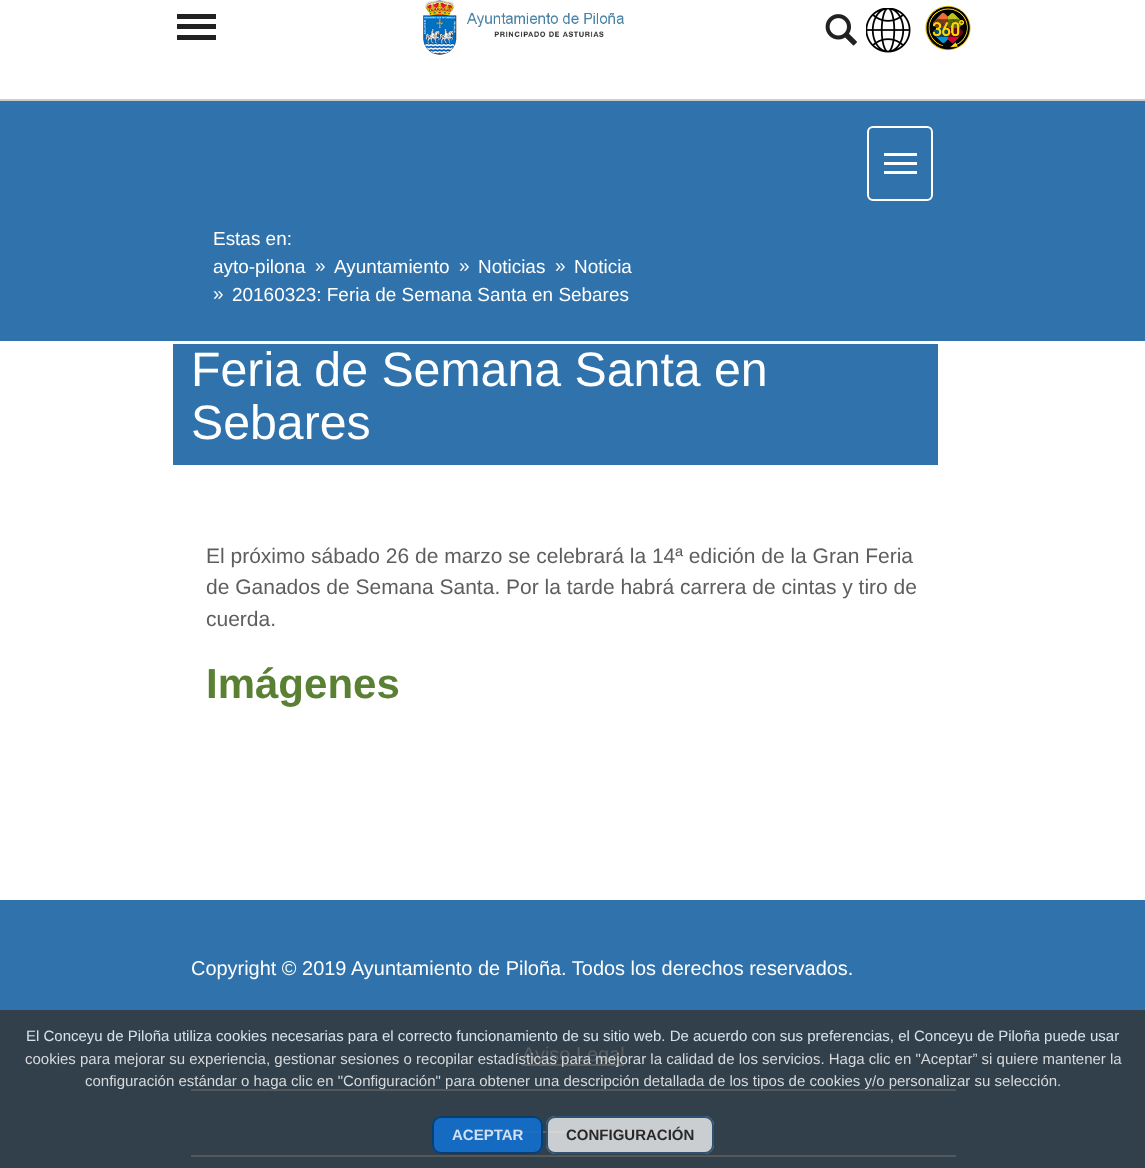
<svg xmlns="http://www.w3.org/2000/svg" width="1145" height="1168">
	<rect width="100%" height="100%" fill="#FFFFFF" />
	<rect x="0" y="99" width="1145" height="2" fill="#CCCCCC" />
	<rect x="177" y="14" width="39" height="5" fill="#212121" />
	<rect x="177" y="24" width="39" height="5" fill="#212121" />
	<rect x="177" y="35" width="39" height="5" fill="#212121" />
	<image x="423" y="0" width="201" height="55" href="assets/img1.png" />
	<image x="825" y="14" width="32" height="32" href="assets/img2.png" />
	<image x="866" y="8" width="45" height="45" href="assets/img3.png" />
	<image x="925" y="5" width="46" height="46" href="assets/img4.png" />
	<rect x="0" y="101" width="1145" height="240" fill="#3072AB" />
	<rect x="868" y="127" width="64" height="73" rx="5" fill="none" stroke="#FFFFFF" stroke-width="2" />
	<rect x="884" y="153" width="33" height="3" fill="#FFFFFF" />
	<rect x="884" y="162" width="33" height="3" fill="#FFFFFF" />
	<rect x="884" y="171" width="33" height="3" fill="#FFFFFF" />
	<g font-family="Liberation Sans" font-size="18.95" fill="#FFFFFF">
		<text x="213" y="245">Estas en:</text>
		<text x="213" y="273">ayto-pilona</text>
		<text x="315" y="272">»</text>
		<text x="334" y="273">Ayuntamiento</text>
		<text x="459" y="272">»</text>
		<text x="478" y="273">Noticias</text>
		<text x="555" y="272">»</text>
		<text x="574" y="273">Noticia</text>
		<text x="213" y="300">»</text>
		<text x="232" y="301">20160323: Feria de Semana Santa en Sebares</text>
	</g>
	<rect x="173" y="344" width="765" height="121" fill="#3072AB" />
	<g font-family="Liberation Sans" font-size="48.25" fill="#FFFFFF">
		<text x="191" y="386">Feria de Semana Santa en</text>
		<text x="191" y="439">Sebares</text>
	</g>
	<g font-family="Liberation Sans" font-size="21" fill="#5E5E5E">
		<text x="206" y="563">El próximo sábado 26 de marzo se celebrará la 14ª edición de la Gran Feria</text>
		<text x="206" y="594">de Ganados de Semana Santa. Por la tarde habrá carrera de cintas y tiro de</text>
		<text x="206" y="626">cuerda.</text>
	</g>
	<text x="206" y="698" font-family="Liberation Sans" font-size="42" font-weight="700" fill="#5A8033">Imágenes</text>
	<rect x="0" y="900" width="1145" height="110" fill="#3072AB" />
	<rect x="0" y="1010" width="1145" height="158" fill="#32404B" />
	<text x="191" y="975" font-family="Liberation Sans" font-size="19.95" fill="#FFFFFF">Copyright © 2019 Ayuntamiento de Piloña. Todos los derechos reservados.</text>
	<rect x="191" y="1089" width="765" height="2" fill="#54585A" />
	<rect x="522" y="1064" width="102" height="2" fill="#5C5C5C" />
	<text x="522" y="1061" font-family="Liberation Sans" font-size="19.95" fill="#5E5E5E">Aviso Legal</text>
	<rect x="191" y="1155" width="765" height="2" fill="#54585A" />
	<rect x="477" y="1131" width="192" height="2" fill="#5C5C5C" />
	<text x="26" y="1041" font-family="Liberation Sans" font-size="15" fill="#D6E3EE">El Conceyu de Piloña utiliza cookies necesarias para el correcto funcionamiento de su sitio web. De acuerdo con sus preferencias, el Conceyu de Piloña puede usar</text>
	<g font-family="Liberation Sans" font-size="15" fill="#D6D9DB">
		<text x="25" y="1064">cookies para mejorar su experiencia, gestionar sesiones o recopilar estadísticas para mejorar la calidad de los servicios. Haga clic en "Aceptar” si quiere mantener la</text>
		<text x="85" y="1086">configuración estándar o haga clic en "Configuración" para obtener una descripción detallada de los tipos de cookies y/o personalizar su selección.</text>
	</g>
	<rect x="432" y="1116" width="111" height="38" rx="9" fill="#0D75DE" fill-opacity="0.8" />
	<rect x="433" y="1117" width="109" height="36" rx="8" fill="none" stroke="#08335D" stroke-opacity="0.8" stroke-width="2" />
	<text x="452" y="1140" font-family="Liberation Sans" font-size="15" font-weight="700" fill="#D0E1F3">ACEPTAR</text>
	<rect x="546" y="1116" width="168" height="38" rx="9" fill="#F1F1F1" fill-opacity="0.8" />
	<rect x="547" y="1117" width="166" height="36" rx="8" fill="none" stroke="#08335D" stroke-opacity="0.8" stroke-width="2" />
	<text x="566" y="1140" font-family="Liberation Sans" font-size="15" font-weight="700" fill="#29292A">CONFIGURACIÓN</text>
</svg>
